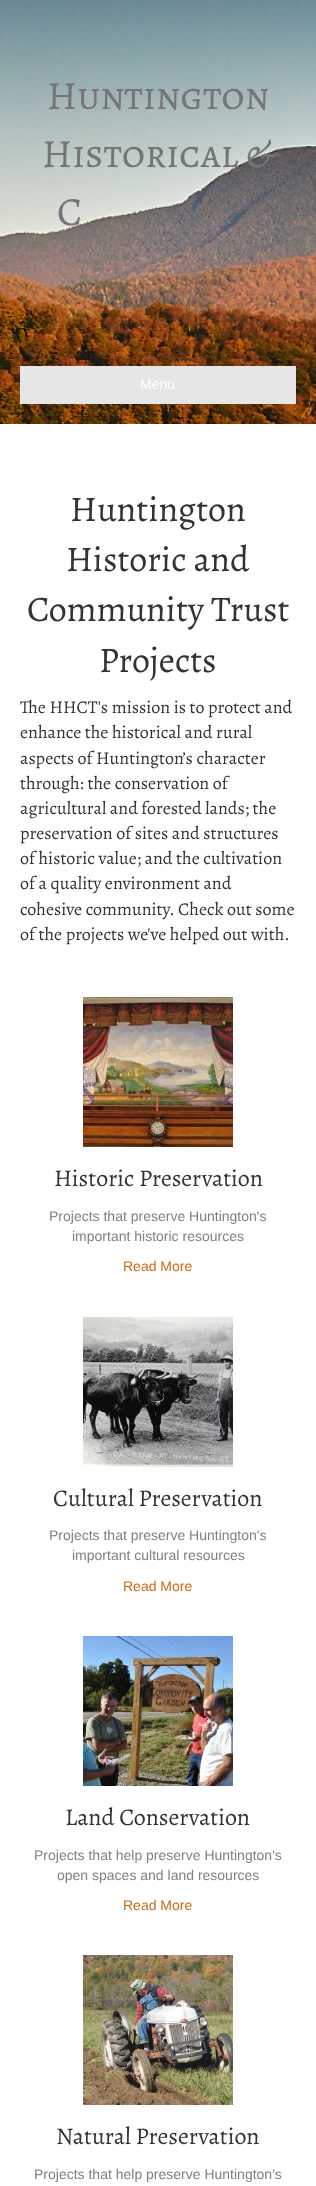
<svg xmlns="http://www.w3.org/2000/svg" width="316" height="2186">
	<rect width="100%" height="100%" fill="#FFFFFF" />
	<image x="0" y="0" width="316" height="424" href="assets/img1.png" />
	<g font-family="Alegreya SC" font-size="40" fill="#757575">
		<text x="47" y="109">Huntington</text>
		<text x="42" y="167">Historical &amp;</text>
		<text x="57" y="225">C</text>
	</g>
	<rect x="20" y="366" width="276" height="38" fill="#E6E6E6" />
	<text x="140" y="389" font-family="Liberation Sans" font-size="14" fill="#FFFFFF">Menu</text>
	<g font-family="Alegreya" font-size="36" fill="#333333">
		<text x="70" y="521">Huntington</text>
		<text x="66" y="571">Historic and</text>
		<text x="27" y="621">Community Trust</text>
		<text x="99" y="672">Projects</text>
	</g>
	<g font-family="Alegreya" font-size="18" fill="#333333">
		<text x="20" y="713">The HHCT's mission is to protect and</text>
		<text x="20" y="738">enhance the historical and rural</text>
		<text x="20" y="764">aspects of Huntington’s character</text>
		<text x="20" y="789">through: the conservation of</text>
		<text x="20" y="814">agricultural and forested lands; the</text>
		<text x="20" y="839">preservation of sites and structures</text>
		<text x="20" y="864">of historic value; and the cultivation</text>
		<text x="20" y="889">of a quality environment and</text>
		<text x="20" y="915">cohesive community. Check out some</text>
		<text x="20" y="940">of the projects we've helped out with.</text>
	</g>
	<image x="83" y="997" width="150" height="150" href="assets/img2.png" />
	<text x="54" y="1186" font-family="Alegreya" font-size="24" fill="#333333">Historic Preservation</text>
	<g font-family="Arimo" font-size="14" fill="#808080">
		<text x="49" y="1221">Projects that preserve Huntington's</text>
		<text x="72" y="1241">important historic resources</text>
	</g>
	<text x="123" y="1271" font-family="Arimo" font-size="14" fill="#CF6713">Read More</text>
	<image x="83" y="1317" width="150" height="150" href="assets/img3.png" />
	<text x="53" y="1506" font-family="Alegreya" font-size="24" fill="#333333">Cultural Preservation</text>
	<g font-family="Arimo" font-size="14" fill="#808080">
		<text x="49" y="1540">Projects that preserve Huntington's</text>
		<text x="72" y="1560">important cultural resources</text>
	</g>
	<text x="123" y="1591" font-family="Arimo" font-size="14" fill="#CF6713">Read More</text>
	<image x="83" y="1636" width="150" height="150" href="assets/img4.png" />
	<text x="65" y="1825" font-family="Alegreya" font-size="24" fill="#333333">Land Conservation</text>
	<g font-family="Arimo" font-size="14" fill="#808080">
		<text x="34" y="1860">Projects that help preserve Huntington's</text>
		<text x="57" y="1880">open spaces and land resources</text>
	</g>
	<text x="123" y="1910" font-family="Arimo" font-size="14" fill="#CF6713">Read More</text>
	<image x="83" y="1955" width="150" height="150" href="assets/img5.png" />
	<text x="56" y="2144" font-family="Alegreya" font-size="24" fill="#333333">Natural Preservation</text>
	<text x="34" y="2179" font-family="Arimo" font-size="14" fill="#808080">Projects that help preserve Huntington's</text>
</svg>
